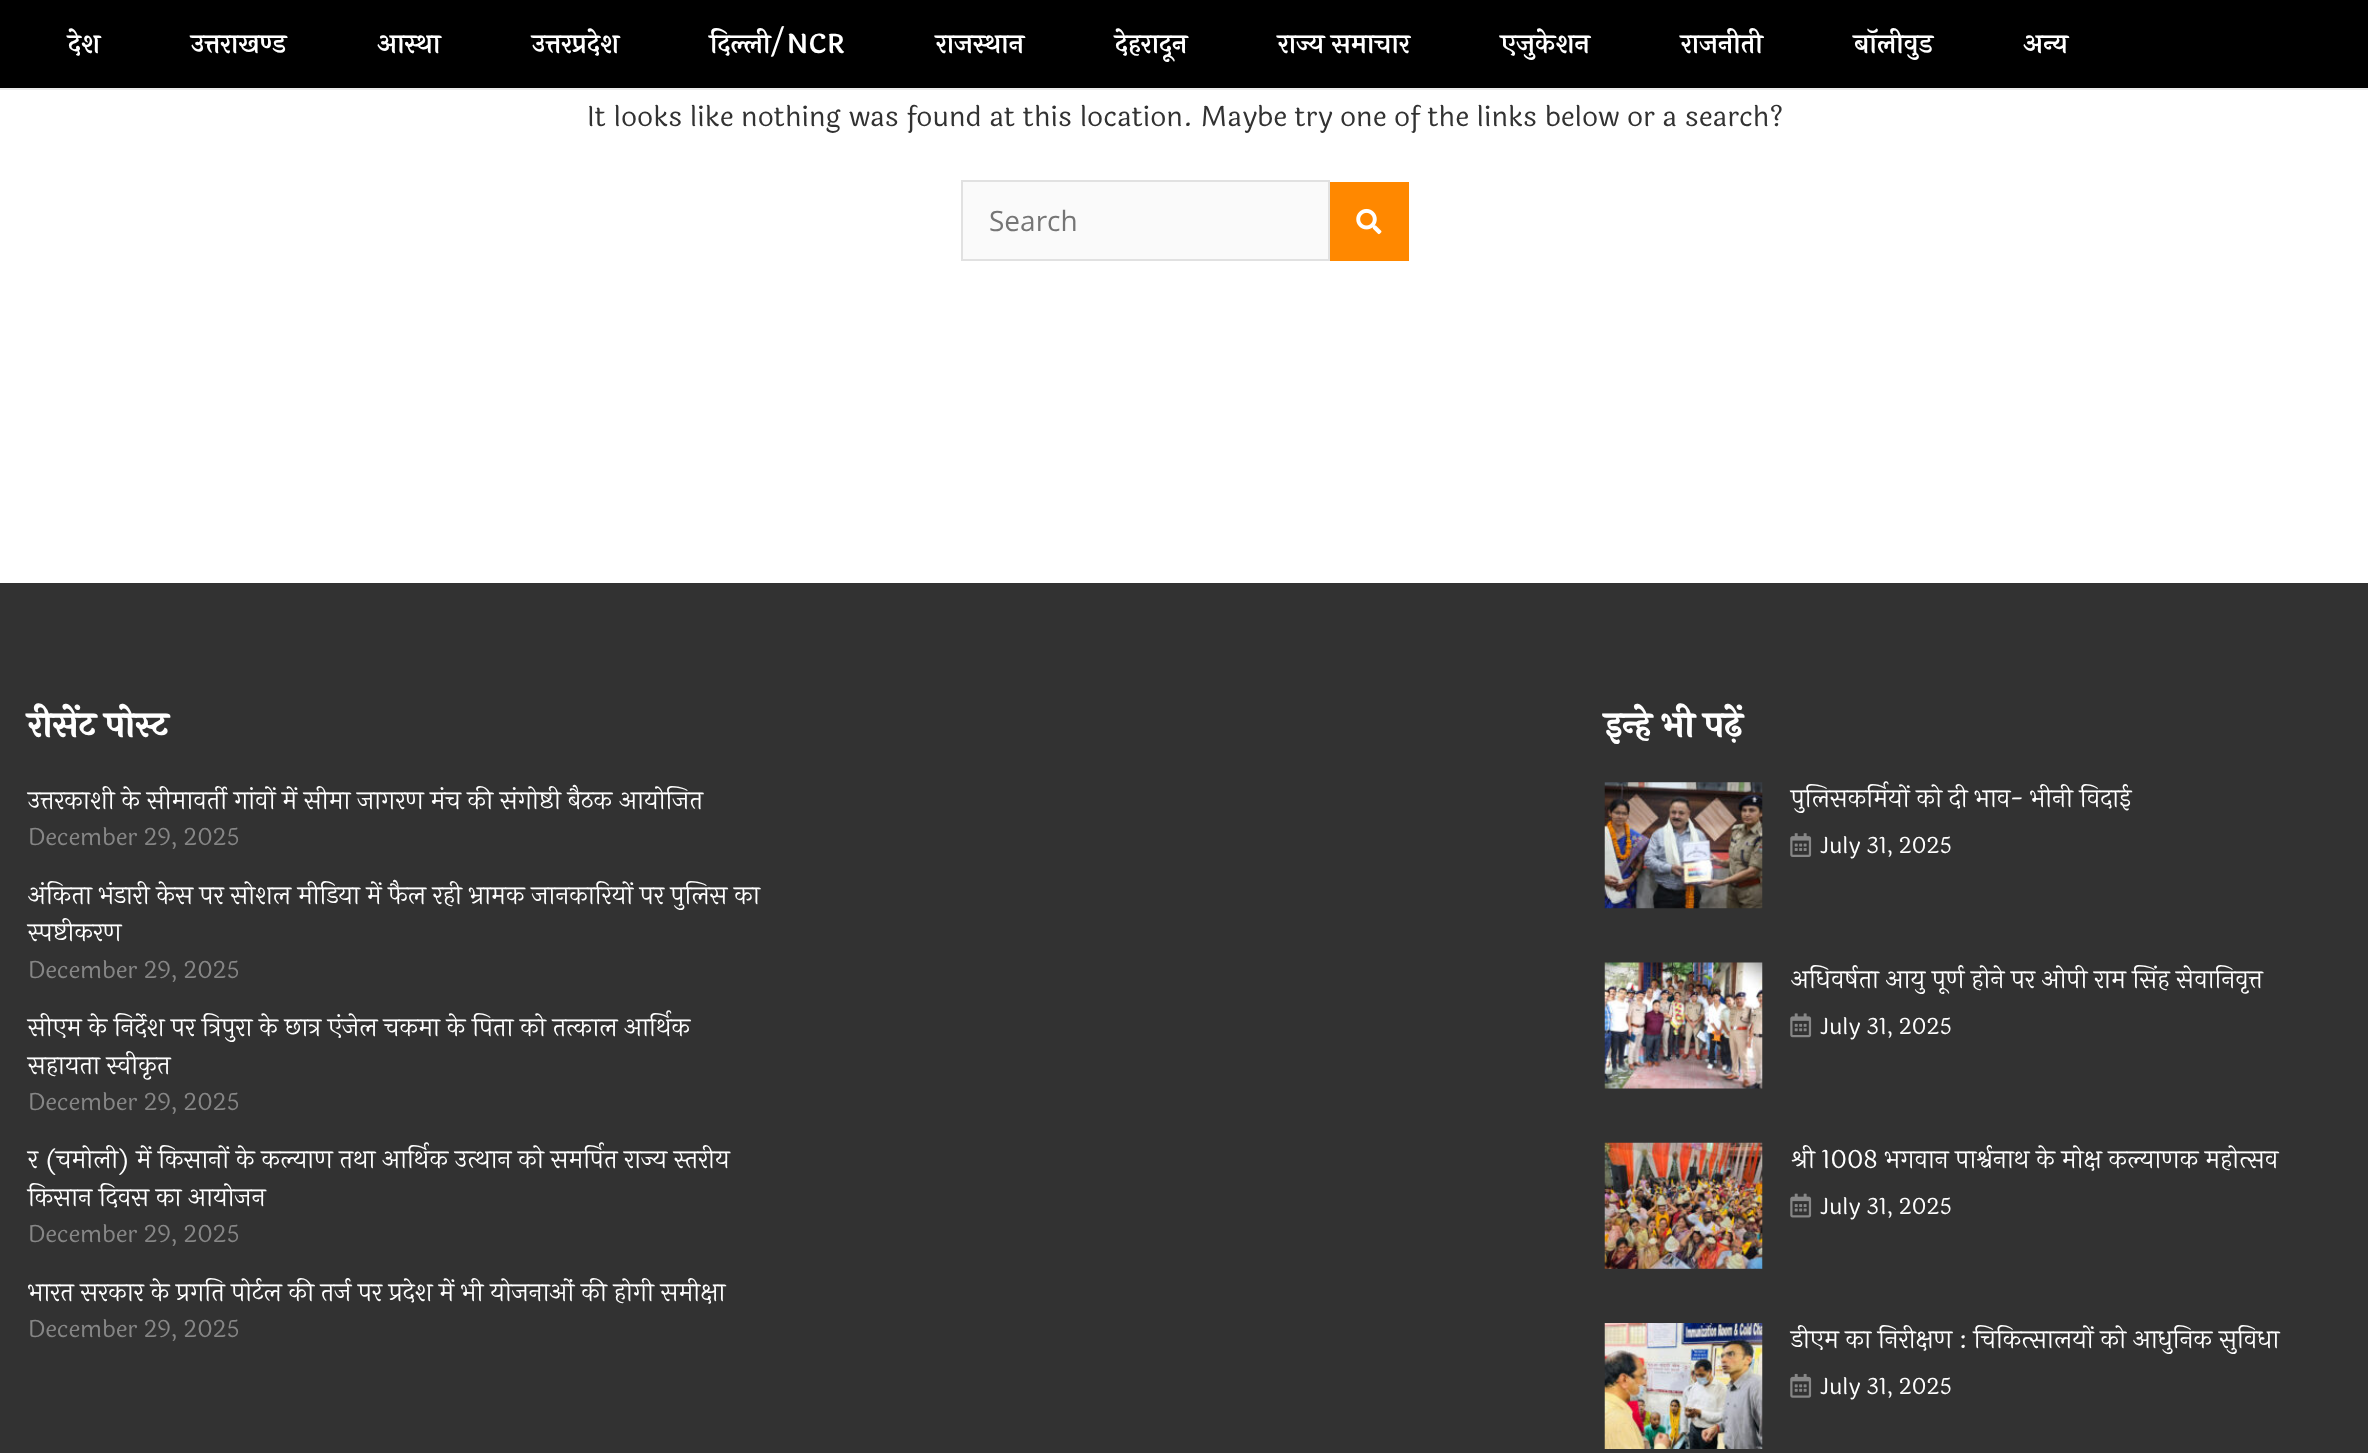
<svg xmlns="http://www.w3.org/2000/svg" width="2368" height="1453">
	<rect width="100%" height="100%" fill="#FFFFFF" />
	<rect x="0" y="88" width="2368" height="2" fill="#EBEBEB" />
	<rect x="0" y="0" width="2368" height="88" fill="#000000" />
	<g font-family="Laila" font-size="26.5" font-weight="600" fill="#FFFFFF">
		<text x="68" y="53">देश</text>
		<text x="191" y="53">उत्तराखण्ड</text>
		<text x="377" y="53">आस्था</text>
		<text x="532" y="53">उत्तरप्रदेश</text>
		<text x="710" y="53">दिल्ली/NCR</text>
		<text x="936" y="53">राजस्थान</text>
		<text x="1115" y="53">देहरादून</text>
		<text x="1278" y="53">राज्य समाचार</text>
		<text x="1501" y="53">एजुकेशन</text>
		<text x="1681" y="53">राजनीती</text>
		<text x="1854" y="53">बॉलीवुड</text>
		<text x="2023" y="53">अन्य</text>
	</g>
	<text x="587" y="126" font-family="Laila" font-size="28" fill="#323232">It looks like nothing was found at this location. Maybe try one of the links below or a search?</text>
	<rect x="962" y="181" width="367" height="79" fill="#FAFAFA" stroke="#E1E1E1" stroke-width="2" />
	<text x="989" y="231" font-family="Open Sans" font-size="28" fill="#757575">Search</text>
	<rect x="1330" y="182" width="79" height="79" fill="#FF8800" />
	<image x="1356" y="208" width="26" height="27" href="assets/img1.png" />
	<rect x="0" y="583" width="2368" height="870" fill="#323232" />
	<text x="28" y="737" font-family="Laila" font-size="35" font-weight="700" fill="#FFFFFF">रीसेंट पोस्ट</text>
	<text x="28" y="809" font-family="Laila" font-size="25.2" fill="#FFFFFF">उत्तरकाशी के सीमावर्ती गांवों में सीमा जागरण मंच की संगोष्ठी बैठक आयोजित</text>
	<text x="28" y="845" font-family="Laila" font-size="23.75" fill="#868686">December 29, 2025</text>
	<g font-family="Laila" font-size="25.2" fill="#FFFFFF">
		<text x="28" y="904">अंकिता भंडारी केस पर सोशल मीडिया में फैल रही भ्रामक जानकारियों पर पुलिस का</text>
		<text x="28" y="941">स्पष्टीकरण</text>
	</g>
	<text x="28" y="978" font-family="Laila" font-size="23.75" fill="#868686">December 29, 2025</text>
	<g font-family="Laila" font-size="25.2" fill="#FFFFFF">
		<text x="28" y="1036">सीएम के निर्देश पर त्रिपुरा के छात्र एंजेल चकमा के पिता को तत्काल आर्थिक</text>
		<text x="28" y="1074">सहायता स्वीकृत</text>
	</g>
	<text x="28" y="1110" font-family="Laila" font-size="23.75" fill="#868686">December 29, 2025</text>
	<g font-family="Laila" font-size="25.2" fill="#FFFFFF">
		<text x="28" y="1168">र (चमोली) में किसानों के कल्याण तथा आर्थिक उत्थान को समर्पित राज्य स्तरीय</text>
		<text x="28" y="1206">किसान दिवस का आयोजन</text>
	</g>
	<text x="28" y="1242" font-family="Laila" font-size="23.75" fill="#868686">December 29, 2025</text>
	<text x="28" y="1301" font-family="Laila" font-size="25.2" fill="#FFFFFF">भारत सरकार के प्रगति पोर्टल की तर्ज पर प्रदेश में भी योजनाओं की होगी समीक्षा</text>
	<text x="28" y="1337" font-family="Laila" font-size="23.75" fill="#868686">December 29, 2025</text>
	<text x="1605" y="737" font-family="Laila" font-size="35" font-weight="700" fill="#FFFFFF">इन्हे भी पढ़ें</text>
	<image x="1604" y="782" width="159" height="127" href="assets/img2.png" />
	<text x="1791" y="807" font-family="Laila" font-size="25.2" fill="#FFFFFF">पुलिसकर्मियों को दी भाव- भीनी विदाई</text>
	<image x="1790" y="833" width="22" height="24" href="assets/img3.png" />
	<text x="1820" y="853" font-family="Laila" font-size="22.5" fill="#FFFFFF">July 31, 2025</text>
	<image x="1604" y="962" width="159" height="127" href="assets/img4.png" />
	<text x="1791" y="988" font-family="Laila" font-size="25.2" fill="#FFFFFF">अधिवर्षता आयु पूर्ण होने पर ओपी राम सिंह सेवानिवृत्त</text>
	<image x="1790" y="1013" width="22" height="25" href="assets/img5.png" />
	<text x="1820" y="1034" font-family="Laila" font-size="22.5" fill="#FFFFFF">July 31, 2025</text>
	<image x="1604" y="1142" width="159" height="127" href="assets/img6.png" />
	<text x="1791" y="1168" font-family="Laila" font-size="25.2" fill="#FFFFFF">श्री 1008 भगवान पार्श्वनाथ के मोक्ष कल्याणक महोत्सव</text>
	<image x="1790" y="1193" width="22" height="25" href="assets/img7.png" />
	<text x="1820" y="1214" font-family="Laila" font-size="22.5" fill="#FFFFFF">July 31, 2025</text>
	<image x="1604" y="1323" width="159" height="126" href="assets/img8.png" />
	<text x="1791" y="1348" font-family="Laila" font-size="25.2" fill="#FFFFFF">डीएम का निरीक्षण : चिकित्सालयों को आधुनिक सुविधा</text>
	<image x="1790" y="1373" width="22" height="25" href="assets/img9.png" />
	<text x="1820" y="1394" font-family="Laila" font-size="22.5" fill="#FFFFFF">July 31, 2025</text>
</svg>
